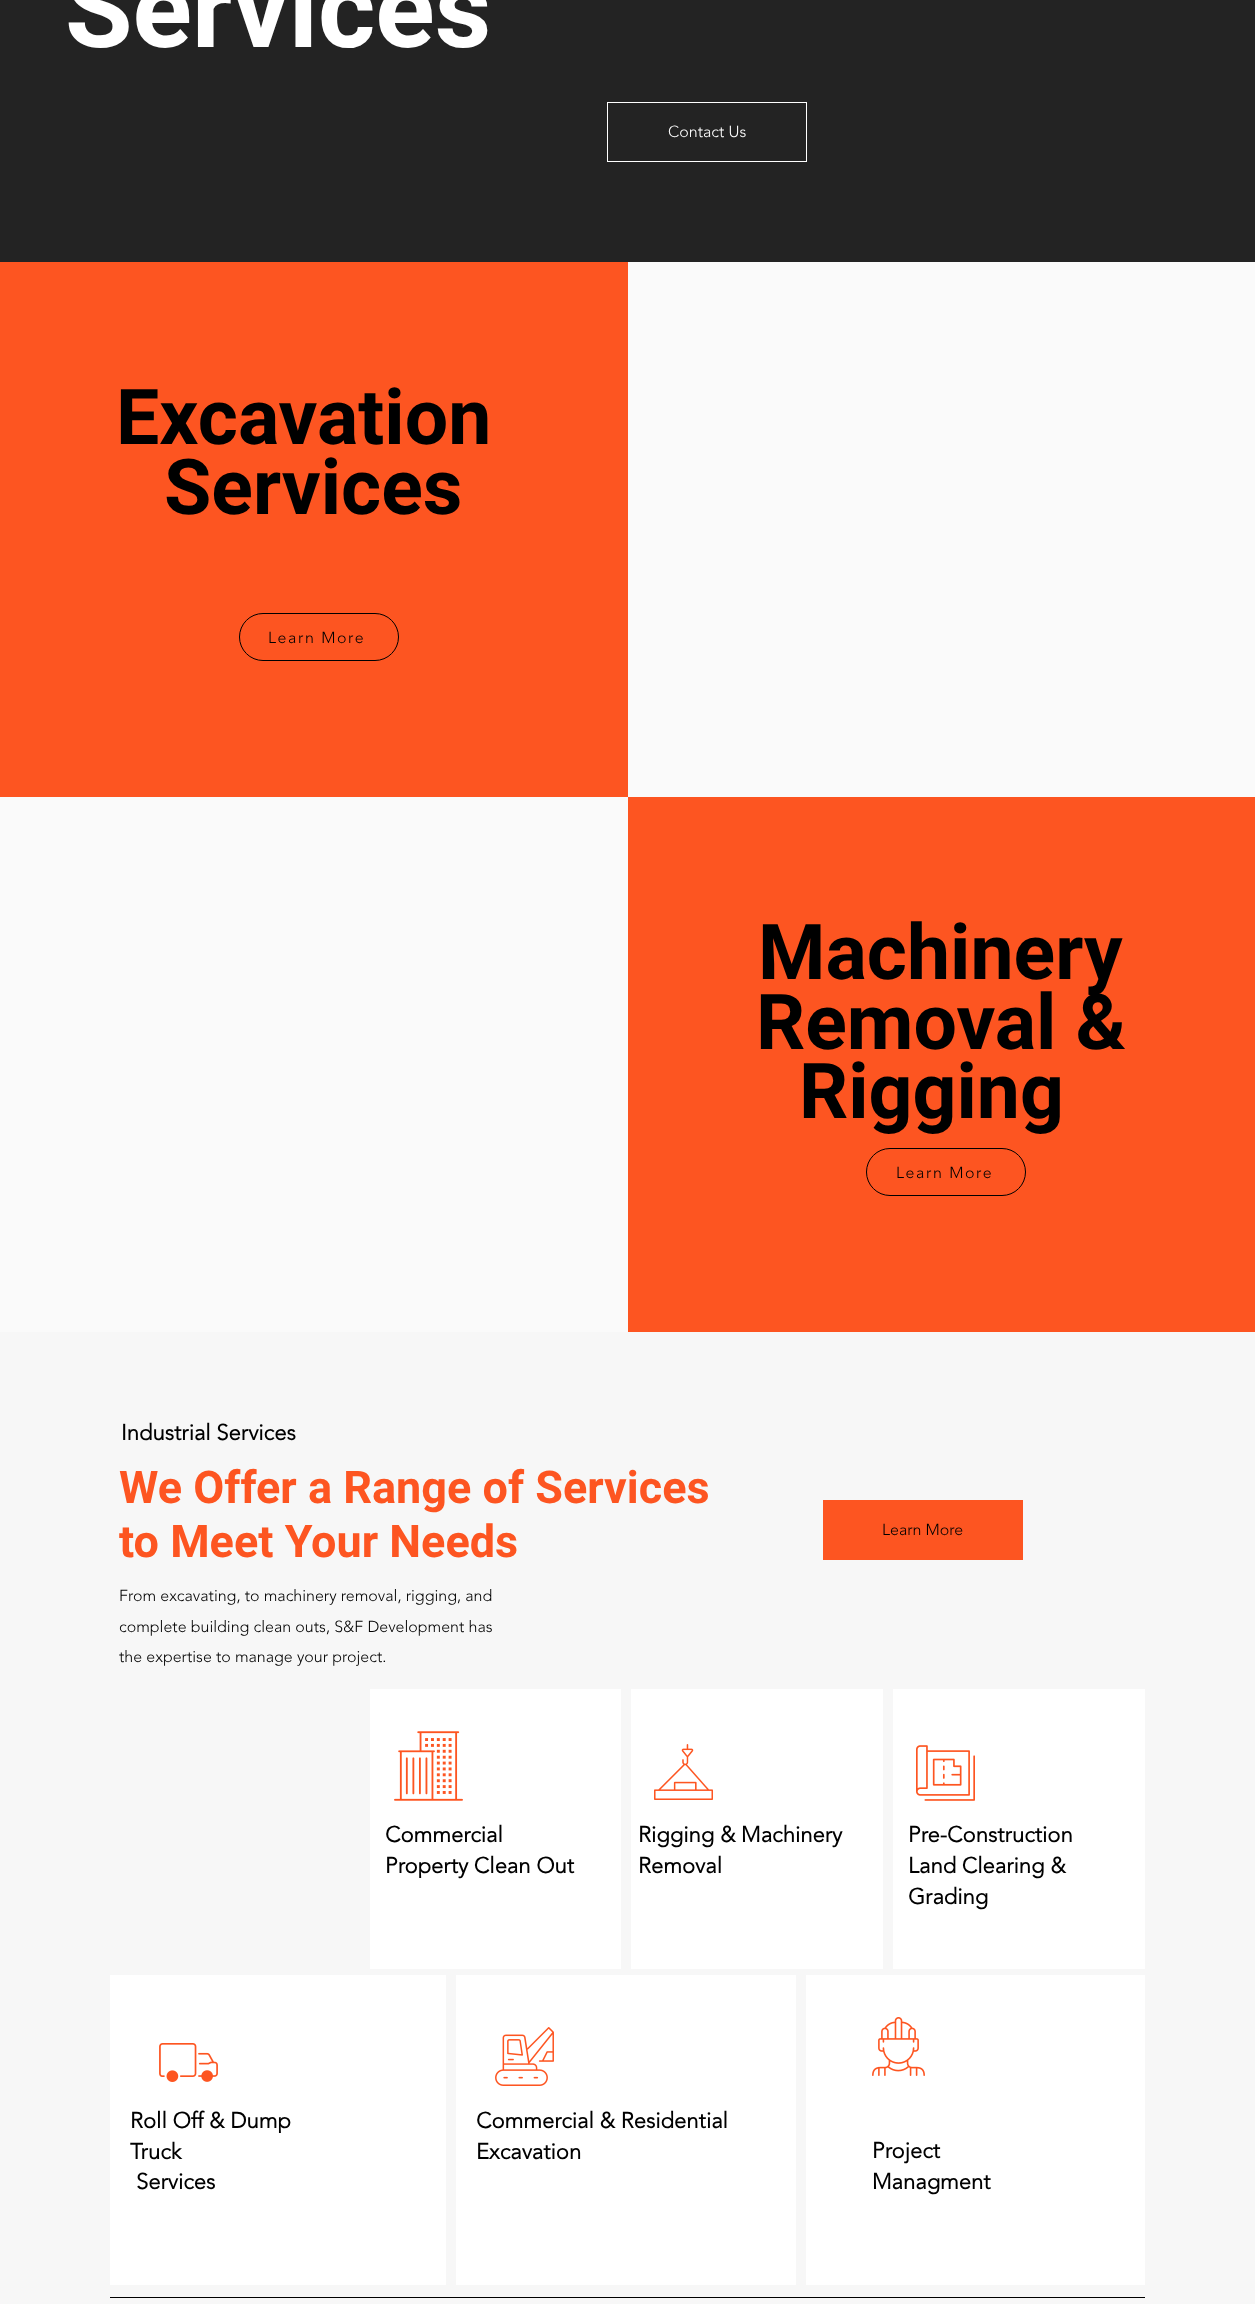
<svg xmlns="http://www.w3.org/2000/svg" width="1255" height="2304">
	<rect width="100%" height="100%" fill="#F7F7F7" />
	<rect x="0" y="0" width="1255" height="262" fill="#232323" />
	<text x="65" y="47" font-family="Roboto" font-size="110" font-weight="700" fill="#FFFFFF">Services</text>
	<rect x="607.5" y="102.5" width="199" height="59" fill="none" stroke="#FFFFFF" />
	<text x="668" y="137" font-family="'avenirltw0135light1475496'" font-size="16" font-weight="300" fill="#FFFFFF">Contact Us</text>
	<rect x="0" y="262" width="628" height="535" fill="#FD5521" />
	<g font-family="Roboto" font-size="77" font-weight="700" fill="#000000">
		<text x="116" y="444">Excavation</text>
		<text x="164" y="514">Services</text>
	</g>
	<rect x="239.5" y="613.5" width="159" height="47" rx="23.5" fill="none" stroke="#000000" />
	<text x="268" y="643" font-family="'avenirltw0135light1475496'" font-size="16" font-weight="300" letter-spacing="1.6" fill="#000000">Learn More</text>
	<rect x="628" y="262" width="627" height="535" fill="#FAFAFA" />
	<rect x="0" y="797" width="628" height="535" fill="#FAFAFA" />
	<rect x="628" y="797" width="627" height="535" fill="#FD5521" />
	<g font-family="Roboto" font-size="77" font-weight="700" fill="#000000">
		<text x="758" y="979">Machinery</text>
		<text x="756" y="1049">Removal &amp;</text>
		<text x="799" y="1118">Rigging</text>
	</g>
	<rect x="866.5" y="1148.5" width="159" height="47" rx="23.5" fill="none" stroke="#000000" />
	<text x="896" y="1178" font-family="'avenirltw0135light1475496'" font-size="16" font-weight="300" letter-spacing="1.6" fill="#000000">Learn More</text>
	<text x="121" y="1440" font-family="'avenirltw0135light1475496'" font-size="22" font-weight="700" fill="#000000">Industrial Services</text>
	<g font-family="Roboto" font-size="45" font-weight="700" fill="#FD5521">
		<text x="119" y="1503">We Offer a Range of Services</text>
		<text x="119" y="1557">to Meet Your Needs</text>
	</g>
	<g font-family="'avenirltw0135light1475496'" font-size="16" font-weight="300" fill="#000000">
		<text x="119" y="1601">From excavating, to machinery removal, rigging, and</text>
		<text x="119" y="1632">complete building clean outs, S&amp;F Development has</text>
		<text x="119" y="1662">the expertise to manage your project.</text>
	</g>
	<rect x="823" y="1500" width="200" height="60" fill="#FD5521" />
	<text x="882" y="1535" font-family="'avenirltw0135light1475496'" font-size="16" font-weight="300" fill="#000000">Learn More</text>
	<rect x="370" y="1689" width="251" height="280" fill="#FFFFFF" />
	<image x="394" y="1731" width="69" height="70" href="assets/img1.png" />
	<g font-family="'avenirltw0135light1475496'" font-size="22" font-weight="700" fill="#000000">
		<text x="385" y="1842">Commercial</text>
		<text x="385" y="1873">Property Clean Out</text>
	</g>
	<rect x="631" y="1689" width="252" height="280" fill="#FFFFFF" />
	<image x="654" y="1744" width="59" height="56" href="assets/img2.png" />
	<g font-family="'avenirltw0135light1475496'" font-size="22" font-weight="700" fill="#000000">
		<text x="638" y="1842">Rigging &amp; Machinery</text>
		<text x="638" y="1873">Removal</text>
	</g>
	<rect x="893" y="1689" width="252" height="280" fill="#FFFFFF" />
	<image x="916" y="1745" width="59" height="56" href="assets/img3.png" />
	<g font-family="'avenirltw0135light1475496'" font-size="22" font-weight="700" fill="#000000">
		<text x="908" y="1842">Pre-Construction</text>
		<text x="908" y="1873">Land Clearing &amp;</text>
		<text x="908" y="1904">Grading</text>
	</g>
	<rect x="110" y="1975" width="336" height="310" fill="#FFFFFF" />
	<image x="159" y="2043" width="59" height="39" href="assets/img4.png" />
	<g font-family="'avenirltw0135light1475496'" font-size="22" font-weight="700" fill="#000000">
		<text x="130" y="2128">Roll Off &amp; Dump</text>
		<text x="130" y="2159">Truck</text>
		<text x="136" y="2189">Services</text>
	</g>
	<rect x="456" y="1975" width="340" height="310" fill="#FFFFFF" />
	<image x="495" y="2027" width="59" height="59" href="assets/img5.png" />
	<g font-family="'avenirltw0135light1475496'" font-size="22" font-weight="700" fill="#000000">
		<text x="476" y="2128">Commercial &amp; Residential</text>
		<text x="476" y="2159">Excavation</text>
	</g>
	<rect x="806" y="1975" width="339" height="310" fill="#FFFFFF" />
	<image x="872" y="2017" width="53" height="59" href="assets/img6.png" />
	<g font-family="'avenirltw0135light1475496'" font-size="22" font-weight="700" fill="#000000">
		<text x="872" y="2158">Project</text>
		<text x="872" y="2189">Managment</text>
	</g>
	<rect x="110" y="2297" width="1035" height="1" fill="#000000" />
</svg>
